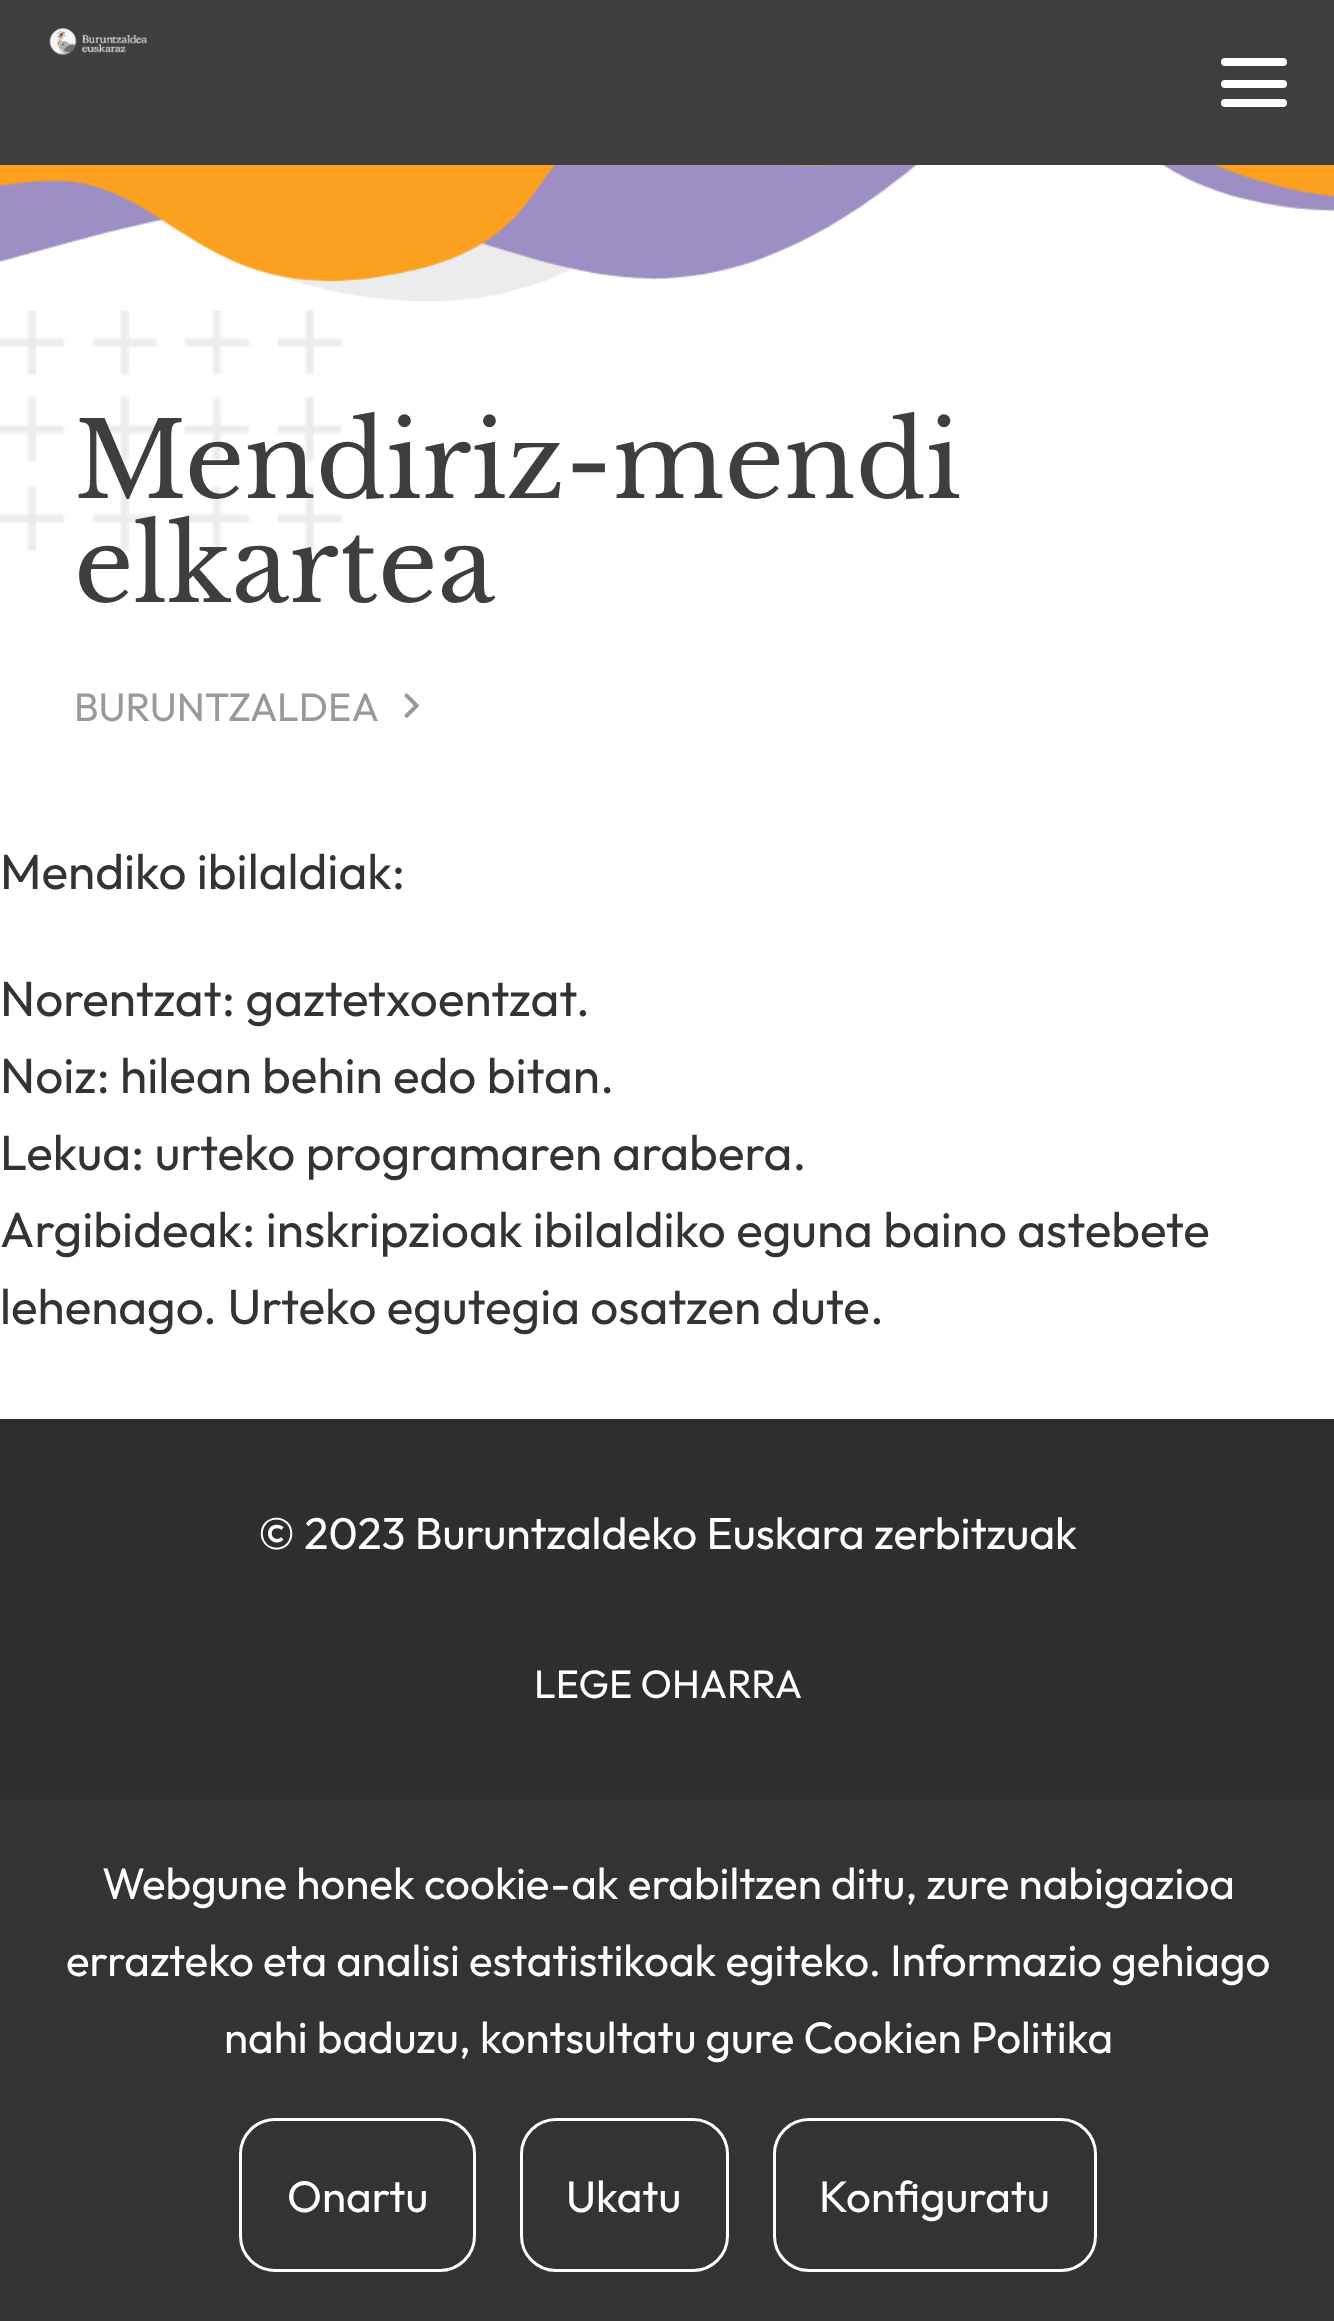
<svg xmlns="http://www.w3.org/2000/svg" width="1334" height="2321">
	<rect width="100%" height="100%" fill="#FFFFFF" />
	<rect x="0" y="0" width="1334" height="165" fill="#3E3E3E" />
	<image x="49" y="28" width="99" height="27" href="assets/img1.png" />
	<rect x="1221" y="80" width="66" height="8" rx="4" fill="#FFFFFF" />
	<rect x="1221" y="58" width="66" height="8" rx="4" fill="#FFFFFF" />
	<rect x="1221" y="99" width="66" height="8" rx="4" fill="#FFFFFF" />
	<image x="0" y="165" width="1334" height="137" href="assets/img2.png" />
	<image x="0" y="310" width="344" height="242" href="assets/img3.png" />
	<g font-family="Libre Baskerville" font-size="104" fill="#3E3E3E">
		<text x="74" y="498">Mendiriz-mendi</text>
		<text x="74" y="602">elkartea</text>
	</g>
	<text x="74" y="721" font-family="Outfit" font-size="39.5" fill="#999999">BURUNTZALDEA</text>
	<image x="404" y="693" width="16" height="25" href="assets/img4.png" />
	<g font-family="Outfit" font-size="49.5" fill="#333333">
		<text x="0" y="889">Mendiko ibilaldiak:</text>
		<text x="0" y="1016">Norentzat: gaztetxoentzat.</text>
		<text x="0" y="1093">Noiz: hilean behin edo bitan.</text>
		<text x="0" y="1170">Lekua: urteko programaren arabera.</text>
		<text x="0" y="1247">Argibideak: inskripzioak ibilaldiko eguna baino astebete</text>
		<text x="0" y="1324">lehenago. Urteko egutegia osatzen dute.</text>
	</g>
	<rect x="0" y="1419" width="1334" height="380" fill="#2E2E2D" />
	<text x="258" y="1549" font-family="Outfit" font-size="44.5" fill="#FFFFFF">© 2023 Buruntzaldeko Euskara zerbitzuak</text>
	<text x="534" y="1698" font-family="Outfit" font-size="39.5" fill="#FFFFFF">LEGE OHARRA</text>
	<rect x="0" y="1799" width="1334" height="522" fill="#333333" />
	<g font-family="Outfit" font-size="44" fill="#FFFFFF">
		<text x="102" y="1899">Webgune honek cookie-ak erabiltzen ditu, zure nabigazioa</text>
		<text x="66" y="1976">errazteko eta analisi estatistikoak egiteko. Informazio gehiago</text>
		<text x="224" y="2053">nahi baduzu, kontsultatu gure Cookien Politika</text>
	</g>
	<rect x="240.5" y="2119.5" width="234" height="151" rx="34.5" fill="none" stroke="#FFFFFF" stroke-width="3" />
	<text x="287" y="2212" font-family="Outfit" font-size="44" fill="#FFFFFF">Onartu</text>
	<rect x="521.5" y="2119.5" width="206" height="151" rx="34.5" fill="none" stroke="#FFFFFF" stroke-width="3" />
	<text x="566" y="2212" font-family="Outfit" font-size="44" fill="#FFFFFF">Ukatu</text>
	<rect x="774.5" y="2119.5" width="321" height="151" rx="34.5" fill="none" stroke="#FFFFFF" stroke-width="3" />
	<text x="819" y="2212" font-family="Outfit" font-size="44" fill="#FFFFFF">Konfiguratu</text>
</svg>
